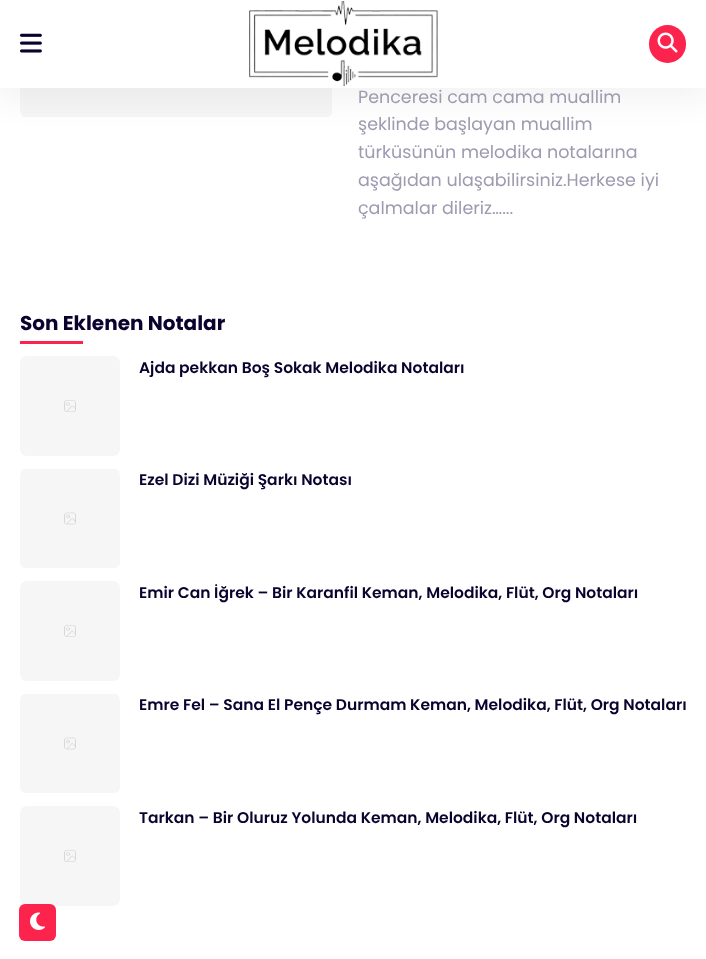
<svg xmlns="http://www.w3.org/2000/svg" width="706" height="959">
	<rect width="100%" height="100%" fill="#FFFFFF" />
	<image x="20" y="88" width="312" height="29" href="assets/img5.png" />
	<rect x="-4" y="4" width="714" height="95" fill="#000000" fill-opacity="0.05" filter="blur(16px)" />
	<rect x="0" y="0" width="706" height="88" fill="#FFFFFF" />
	<image x="249" y="1" width="189" height="85" href="assets/img1.png" />
	<rect x="649" y="25" width="37" height="38" rx="18.5" fill="#FC234D" />
	<image x="657" y="32" width="21" height="21" href="assets/img2.png" />
	<image x="20" y="806" width="100" height="100" href="assets/img6.png" />
	<rect x="19" y="904" width="37" height="37" rx="6" fill="#FC234D" />
	<image x="30" y="912" width="15" height="18" href="assets/img3.png" />
	<image x="20" y="33" width="22" height="20" href="assets/img4.png" />
	<g font-family="Poppins" font-size="17.5" fill="#9F9AB0">
		<text x="358" y="103">Penceresi cam cama muallim</text>
		<text x="358" y="130">şeklinde başlayan muallim</text>
		<text x="358" y="158">türküsünün melodika notalarına</text>
		<text x="358" y="186">aşağıdan ulaşabilirsiniz.Herkese iyi</text>
		<text x="358" y="214">çalmalar dileriz…...</text>
	</g>
	<text x="20" y="330" font-family="Poppins" font-size="20" font-weight="700" fill="#0B022E">Son Eklenen Notalar</text>
	<rect x="20" y="341" width="63" height="3" fill="#FC234D" />
	<image x="20" y="356" width="100" height="100" href="assets/img6.png" />
	<text x="139" y="373" font-family="Poppins" font-size="15.5" font-weight="600" fill="#0B022E">Ajda pekkan Boş Sokak Melodika Notaları</text>
	<image x="20" y="469" width="100" height="99" href="assets/img7.png" />
	<text x="139" y="485" font-family="Poppins" font-size="15.5" font-weight="600" fill="#0B022E">Ezel Dizi Müziği Şarkı Notası</text>
	<image x="20" y="581" width="100" height="100" href="assets/img6.png" />
	<text x="139" y="598" font-family="Poppins" font-size="15.5" font-weight="600" fill="#0B022E">Emir Can İğrek – Bir Karanfil Keman, Melodika, Flüt, Org Notaları</text>
	<image x="20" y="694" width="100" height="99" href="assets/img7.png" />
	<g font-family="Poppins" font-size="15.5" font-weight="600" fill="#0B022E">
		<text x="139" y="710">Emre Fel – Sana El Pençe Durmam Keman, Melodika, Flüt, Org Notaları</text>
		<text x="139" y="823">Tarkan – Bir Oluruz Yolunda Keman, Melodika, Flüt, Org Notaları</text>
	</g>
</svg>
